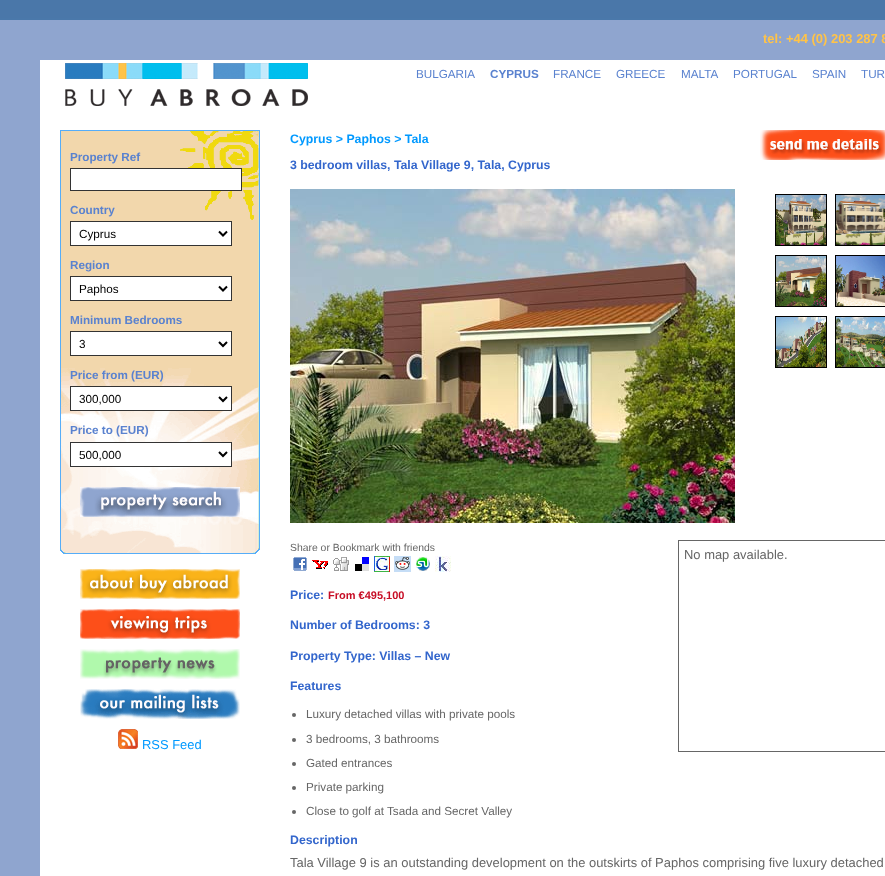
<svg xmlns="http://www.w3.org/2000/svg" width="885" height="876">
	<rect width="100%" height="100%" fill="#FFFFFF" />
	<image x="0" y="0" width="885" height="20" href="assets/img1.png" />
	<rect x="20" y="40" width="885" height="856" fill="none" stroke="#8FA5CF" stroke-width="40" />
	<text x="763" y="43" font-family="Liberation Sans" font-size="12.95" font-weight="700" fill="#FFC348">tel: +44 (0) 203 287 8</text>
	<image x="65" y="63" width="243" height="43" href="assets/img2.png" />
	<text x="416" y="78" font-family="Liberation Sans" font-size="11.7" fill="#5A82CF">BULGARIA</text>
	<text x="490" y="78" font-family="Liberation Sans" font-size="11.7" font-weight="700" fill="#5A82CF">CYPRUS</text>
	<g font-family="Liberation Sans" font-size="11.7" fill="#5A82CF">
		<text x="553" y="78">FRANCE</text>
		<text x="616" y="78">GREECE</text>
		<text x="681" y="78">MALTA</text>
		<text x="733" y="78">PORTUGAL</text>
		<text x="812" y="78">SPAIN</text>
		<text x="861" y="78">TUR</text>
	</g>
	<image x="60" y="130" width="200" height="238" href="assets/img3.png" />
	<image x="61" y="130" width="198" height="90" href="assets/img4.png" />
	<text x="70" y="161" font-family="Liberation Sans" font-size="11.7" font-weight="700" fill="#5A82CF">Property Ref</text>
	<rect x="70.5" y="168.5" width="171" height="22" fill="#FFFFFF" stroke="#333333" />
	<text x="70" y="214" font-family="Liberation Sans" font-size="11.7" font-weight="700" fill="#5A82CF">Country</text>
	<rect x="70.5" y="221.5" width="161" height="24" fill="#FFFFFF" stroke="#333333" />
	<path d="M219 231.5L223 235.5L227 231.5" fill="none" stroke="#000000" stroke-width="2" />
	<text x="79" y="238" font-family="Liberation Sans" font-size="11.7" fill="#000000">Cyprus</text>
	<text x="70" y="269" font-family="Liberation Sans" font-size="11.7" font-weight="700" fill="#5A82CF">Region</text>
	<rect x="70.5" y="276.5" width="161" height="24" fill="#FFFFFF" stroke="#333333" />
	<path d="M219 286.5L223 290.5L227 286.5" fill="none" stroke="#000000" stroke-width="2" />
	<text x="79" y="293" font-family="Liberation Sans" font-size="11.7" fill="#000000">Paphos</text>
	<text x="70" y="324" font-family="Liberation Sans" font-size="11.7" font-weight="700" fill="#5A82CF">Minimum Bedrooms</text>
	<rect x="70.5" y="331.5" width="161" height="24" fill="#FFFFFF" stroke="#333333" />
	<path d="M219 342L223 346L227 342" fill="none" stroke="#000000" stroke-width="2" />
	<text x="79" y="348" font-family="Liberation Sans" font-size="11.7" fill="#000000">3</text>
	<image x="60" y="368" width="200" height="186" href="assets/img6.png" />
	<text x="70" y="379" font-family="Liberation Sans" font-size="11.7" font-weight="700" fill="#5A82CF">Price from (EUR)</text>
	<rect x="70.5" y="386.5" width="161" height="24" fill="#FFFFFF" stroke="#333333" />
	<path d="M219 397L223 401L227 397" fill="none" stroke="#000000" stroke-width="2" />
	<text x="79" y="403" font-family="Liberation Sans" font-size="11.7" fill="#000000">300,000</text>
	<text x="70" y="434" font-family="Liberation Sans" font-size="11.7" font-weight="700" fill="#5A82CF">Price to (EUR)</text>
	<rect x="70.5" y="442.5" width="161" height="24" fill="#FFFFFF" stroke="#333333" />
	<path d="M219 452L223 456L227 452" fill="none" stroke="#000000" stroke-width="2" />
	<text x="79" y="459" font-family="Liberation Sans" font-size="11.7" fill="#000000">500,000</text>
	<image x="80" y="487" width="160" height="30" href="assets/img5.png" />
	<image x="80" y="569" width="160" height="30" href="assets/img7.png" />
	<image x="80" y="609" width="160" height="30" href="assets/img8.png" />
	<image x="80" y="649" width="160" height="30" href="assets/img9.png" />
	<image x="80" y="689" width="160" height="30" href="assets/img10.png" />
	<image x="118" y="729" width="20" height="20" href="assets/img11.png" />
	<text x="142" y="749" font-family="Liberation Sans" font-size="12.95" fill="#0099FF">RSS Feed</text>
	<text x="290" y="143" font-family="Liberation Sans" font-size="12.3" font-weight="700" fill="#0099FF">Cyprus &gt; Paphos &gt; Tala</text>
	<image x="760" y="130" width="125" height="30" href="assets/img12.png" />
	<text x="290" y="169" font-family="Liberation Sans" font-size="12.3" font-weight="700" fill="#3366CC">3 bedroom villas, Tala Village 9, Tala, Cyprus</text>
	<image x="290" y="189" width="445" height="334" href="assets/img13.png" />
	<rect x="775.5" y="194.5" width="51" height="51" fill="none" stroke="#000000" />
	<image x="776" y="195" width="50" height="50" href="assets/img14.png" />
	<rect x="835.5" y="194.5" width="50" height="51" fill="none" stroke="#000000" />
	<image x="836" y="195" width="49" height="50" href="assets/img15.png" />
	<rect x="775.5" y="255.5" width="51" height="51" fill="none" stroke="#000000" />
	<image x="776" y="256" width="50" height="50" href="assets/img16.png" />
	<rect x="835.5" y="255.5" width="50" height="51" fill="none" stroke="#000000" />
	<image x="836" y="256" width="49" height="50" href="assets/img17.png" />
	<rect x="775.5" y="316.5" width="51" height="51" fill="none" stroke="#000000" />
	<image x="776" y="317" width="50" height="50" href="assets/img18.png" />
	<rect x="835.5" y="316.5" width="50" height="51" fill="none" stroke="#000000" />
	<image x="836" y="317" width="49" height="50" href="assets/img19.png" />
	<text x="290" y="551" font-family="Liberation Sans" font-size="10.4" fill="#666666">Share or Bookmark with friends</text>
	<image x="293" y="557" width="14" height="14" href="assets/img20.png" />
	<image x="312" y="560" width="16" height="9" href="assets/img21.png" />
	<image x="333" y="557" width="16" height="14" href="assets/img22.png" />
	<image x="355" y="557" width="14" height="14" href="assets/img23.png" />
	<image x="374" y="556" width="16" height="16" href="assets/img24.png" />
	<image x="394" y="556" width="17" height="16" href="assets/img25.png" />
	<image x="416" y="557" width="14" height="14" href="assets/img26.png" />
	<image x="435" y="556" width="16" height="16" href="assets/img27.png" />
	<rect x="678.5" y="540.5" width="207" height="211" fill="none" stroke="#666666" />
	<text x="684" y="559" font-family="Liberation Sans" font-size="12.95" fill="#666666">No map available.</text>
	<text x="290" y="599" font-family="Liberation Sans" font-size="12.3" font-weight="700" fill="#3366CC">Price:</text>
	<text x="328" y="599" font-family="Liberation Sans" font-size="11" font-weight="700" fill="#C70D25">From €495,100</text>
	<g font-family="Liberation Sans" font-size="12.3" font-weight="700" fill="#3366CC">
		<text x="290" y="629">Number of Bedrooms: 3</text>
		<text x="290" y="660">Property Type: Villas – New</text>
		<text x="290" y="690">Features</text>
	</g>
	<circle cx="294" cy="715" r="2" fill="#666666" />
	<text x="306" y="718" font-family="Liberation Sans" font-size="11.7" fill="#666666">Luxury detached villas with private pools</text>
	<circle cx="294" cy="740" r="2" fill="#666666" />
	<text x="306" y="743" font-family="Liberation Sans" font-size="11.7" fill="#666666">3 bedrooms, 3 bathrooms</text>
	<circle cx="294" cy="764" r="2" fill="#666666" />
	<text x="306" y="767" font-family="Liberation Sans" font-size="11.7" fill="#666666">Gated entrances</text>
	<circle cx="294" cy="788" r="2" fill="#666666" />
	<text x="306" y="791" font-family="Liberation Sans" font-size="11.7" fill="#666666">Private parking</text>
	<circle cx="294" cy="812" r="2" fill="#666666" />
	<text x="306" y="815" font-family="Liberation Sans" font-size="11.7" fill="#666666">Close to golf at Tsada and Secret Valley</text>
	<text x="290" y="844" font-family="Liberation Sans" font-size="12.3" font-weight="700" fill="#3366CC">Description</text>
	<text x="290" y="867" font-family="Liberation Sans" font-size="12.95" fill="#666666">Tala Village 9 is an outstanding development on the outskirts of Paphos comprising five luxury detached</text>
</svg>
